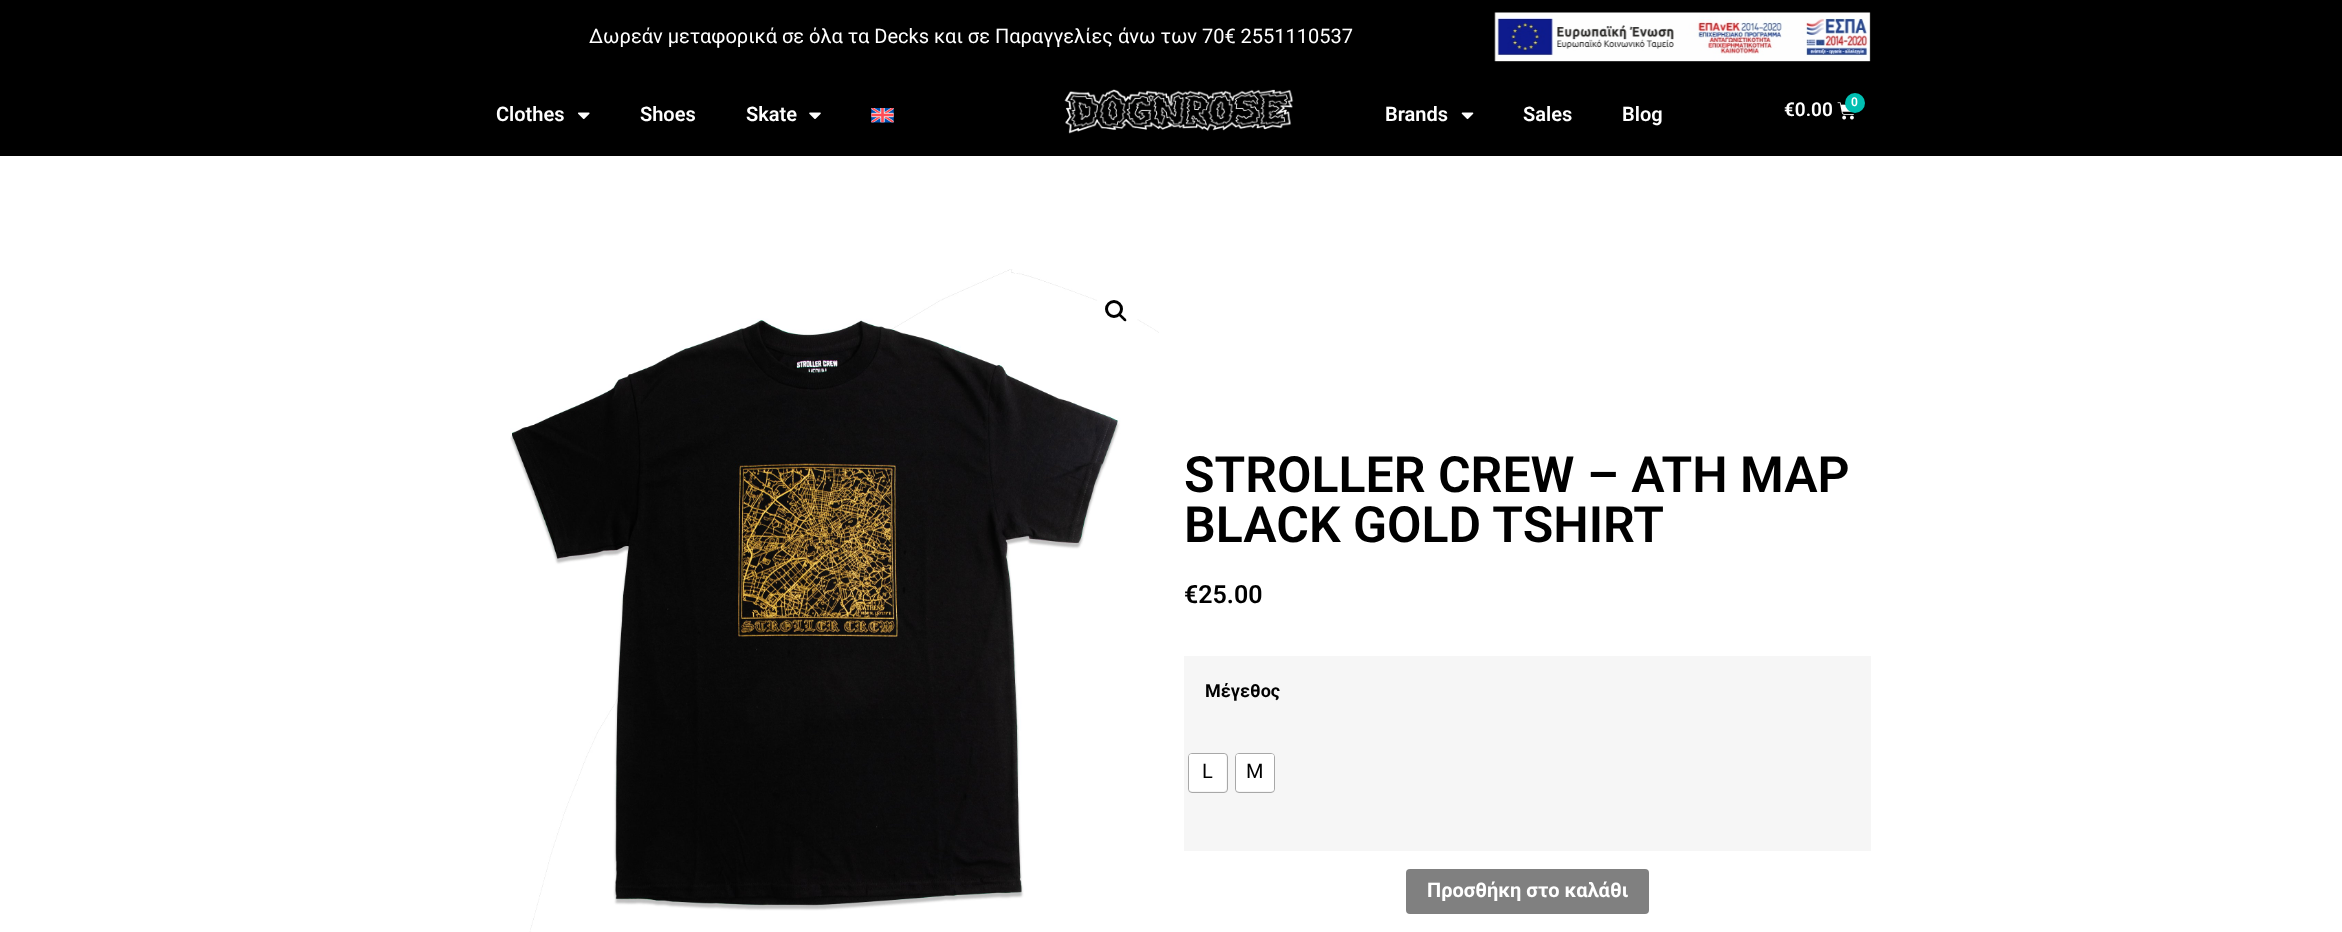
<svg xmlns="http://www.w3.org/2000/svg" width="2342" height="932">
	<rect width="100%" height="100%" fill="#FFFFFF" />
	<rect x="0" y="0" width="2342" height="156" fill="#000000" />
	<text x="589" y="43" font-family="Roboto" font-size="20" fill="#FFFFFF">Δωρεάν μεταφορικά σε όλα τα Decks και σε Παραγγελίες άνω των 70€ 2551110537</text>
	<image x="1494" y="12" width="377" height="50" href="assets/img1.png" />
	<text x="496" y="121" font-family="Roboto" font-size="20" font-weight="600" fill="#FFFFFF">Clothes</text>
	<image x="578" y="112" width="12" height="8" href="assets/img2.png" />
	<g font-family="Roboto" font-size="20" font-weight="600" fill="#FFFFFF">
		<text x="640" y="121">Shoes</text>
		<text x="746" y="121">Skate</text>
	</g>
	<image x="809" y="112" width="12" height="7" href="assets/img3.png" />
	<image x="871" y="108" width="23" height="15" href="assets/img4.png" />
	<image x="1064" y="89" width="230" height="45" href="assets/img5.png" />
	<text x="1385" y="121" font-family="Roboto" font-size="20" font-weight="600" fill="#FFFFFF">Brands</text>
	<image x="1461" y="112" width="13" height="8" href="assets/img6.png" />
	<g font-family="Roboto" font-size="20" font-weight="600" fill="#FFFFFF">
		<text x="1523" y="121">Sales</text>
		<text x="1622" y="121">Blog</text>
	</g>
	<text x="1784" y="116" font-family="Roboto" font-size="19" font-weight="600" fill="#FFFFFF">€0.00</text>
	<image x="1837" y="102" width="17" height="18" href="assets/img7.png" />
	<circle cx="1855" cy="103" r="10" fill="#00BFB2" />
	<text x="1851" y="106" font-family="Roboto" font-size="12" font-weight="600" fill="#FFFFFF">0</text>
	<image x="510" y="269" width="649" height="663" href="assets/img8.png" />
	<circle cx="1116.5" cy="311.5" r="22.5" fill="#FFFFFF" />
	<circle cx="1114" cy="309" r="7.5" fill="none" stroke="#000000" stroke-width="3" />
	<path d="M1119 314C1120.5 312.5 1122.5 316 1123.5 316.5C1124 317.5 1127.5 319.5 1126 321C1124.5 322.5 1122.5 319 1121.5 318.5C1121 317.5 1117.5 315.5 1119 314Z" fill="#000000" />
	<g font-family="Roboto" font-size="50" font-weight="600" fill="#000000">
		<text x="1184" y="492">STROLLER CREW – ATH MAP</text>
		<text x="1184" y="542">BLACK GOLD TSHIRT</text>
	</g>
	<text x="1184" y="603" font-family="Roboto" font-size="25" font-weight="600" fill="#000000">€25.00</text>
	<rect x="1184" y="656" width="687" height="195" fill="#F6F6F6" />
	<text x="1205" y="697" font-family="Roboto" font-size="18" font-weight="700" fill="#000000">Μέγεθος</text>
	<rect x="1188.5" y="753.5" width="39" height="39" rx="3.5" fill="none" stroke="#A8A8A8" />
	<rect x="1189" y="754" width="37" height="37" rx="2.5" fill="#FFFFFF" />
	<text x="1202" y="778" font-family="Roboto" font-size="20" fill="#000000">L</text>
	<rect x="1235.5" y="753.5" width="39" height="39" rx="3.5" fill="none" stroke="#A8A8A8" />
	<rect x="1236" y="754" width="38" height="37" rx="2.5" fill="#FFFFFF" />
	<text x="1246" y="778" font-family="Roboto" font-size="20" fill="#000000">M</text>
	<rect x="1406" y="869" width="243" height="45" rx="4" fill="#808080" />
	<text x="1427" y="897" font-family="Roboto" font-size="20" font-weight="700" fill="#FFFFFF">Προσθήκη στο καλάθι</text>
</svg>
